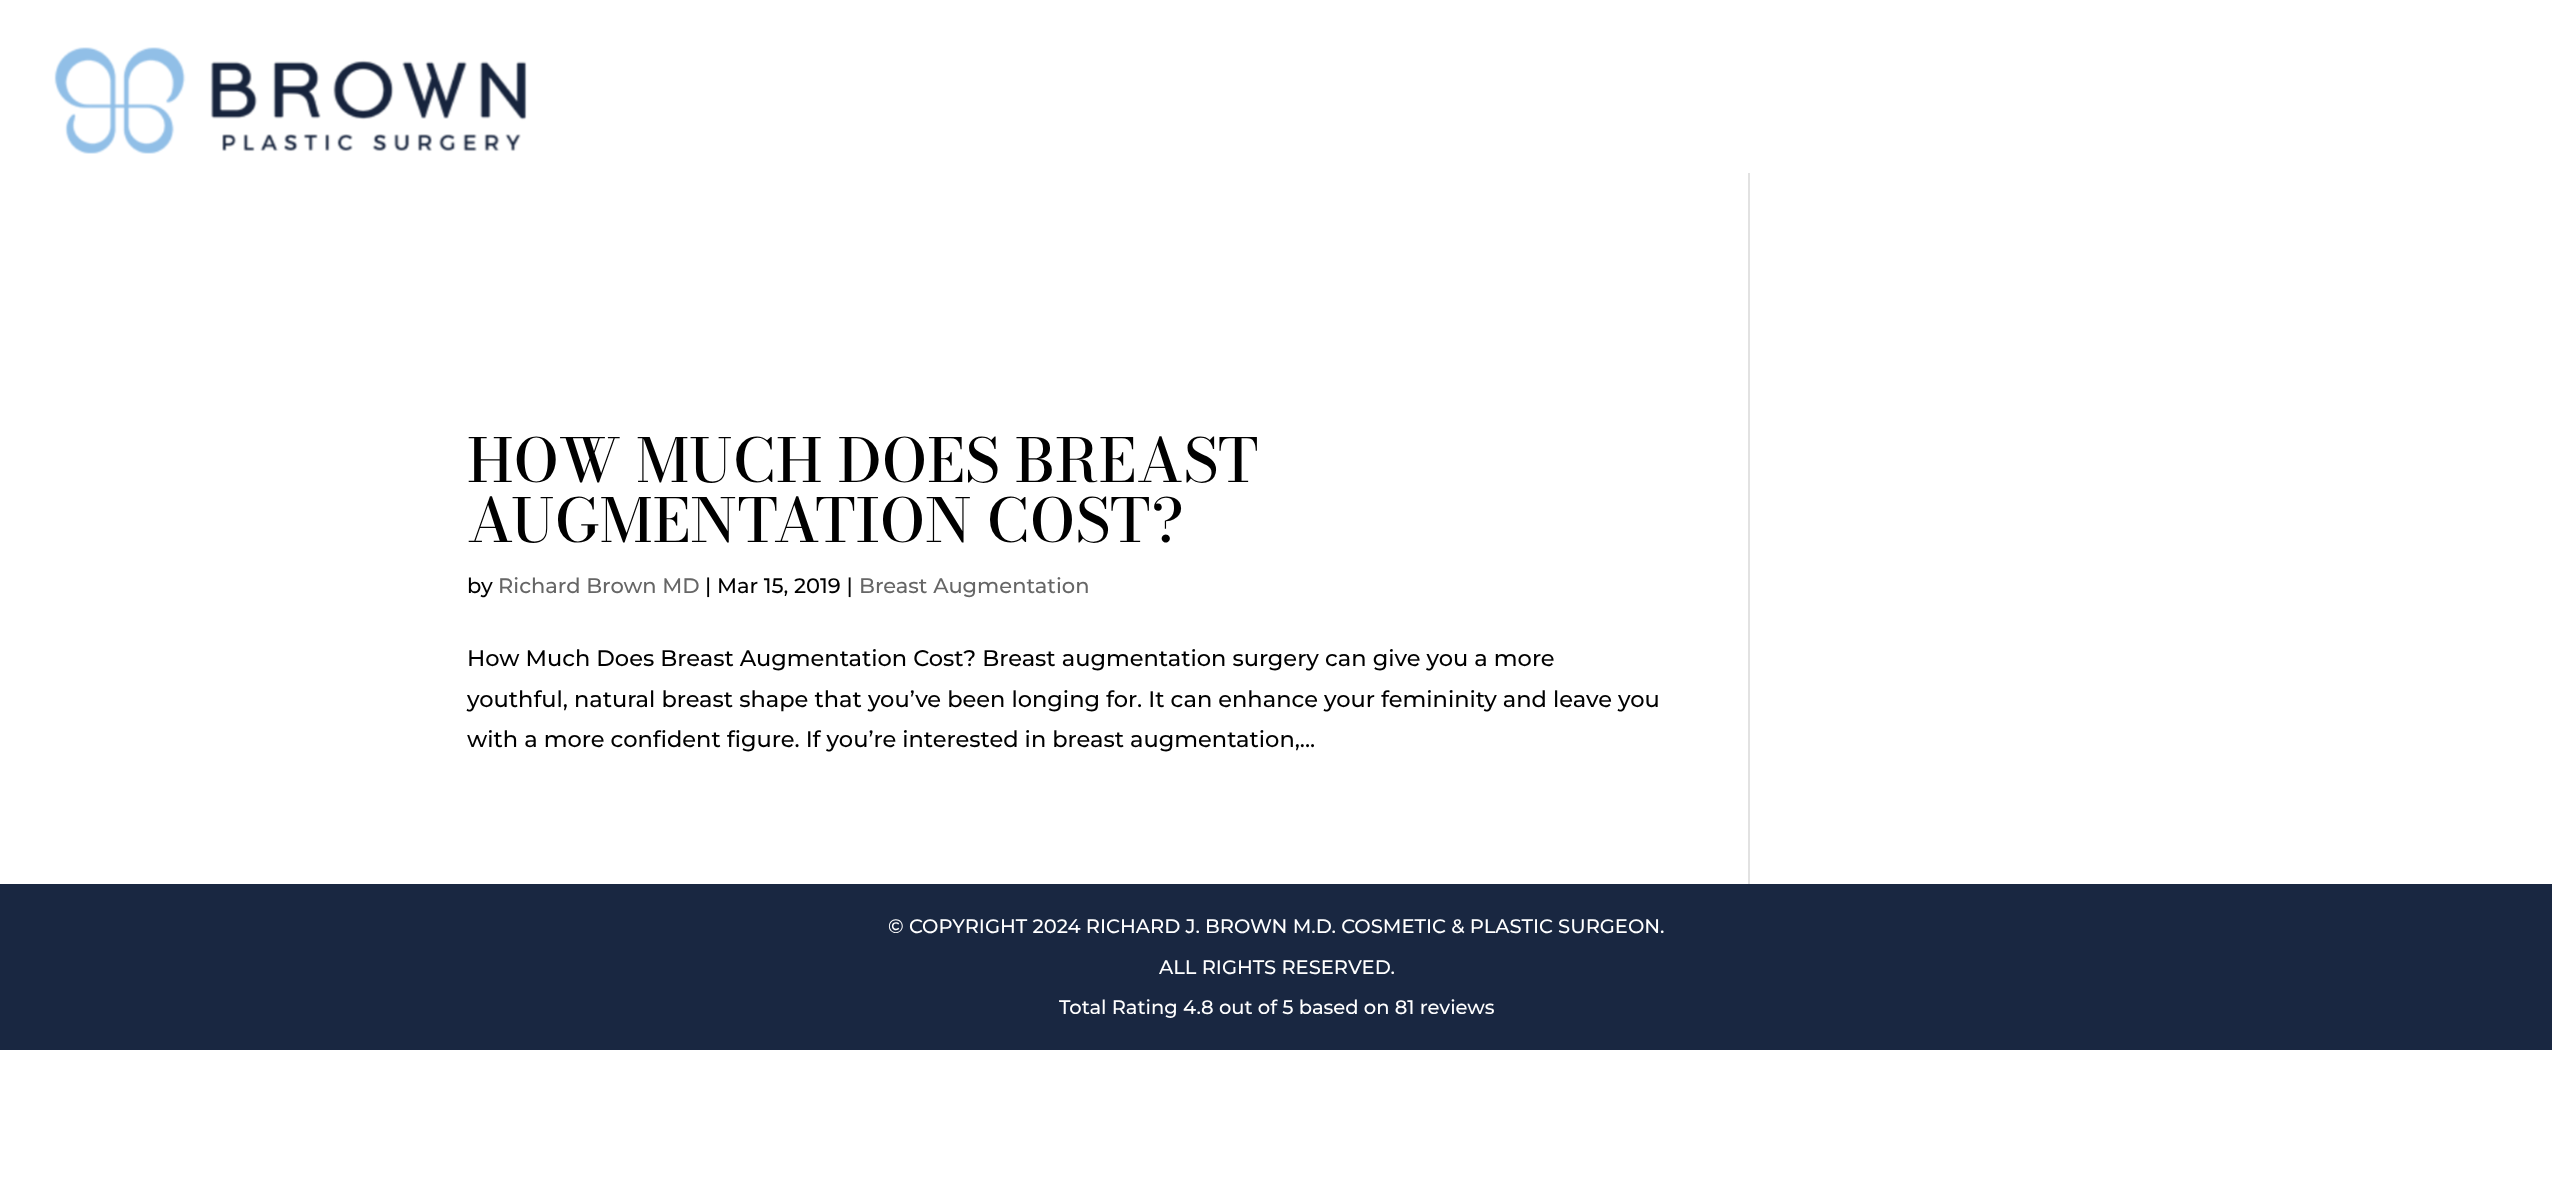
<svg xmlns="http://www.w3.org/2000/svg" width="2552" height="1189">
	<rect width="100%" height="100%" fill="#FFFFFF" />
	<image x="54" y="47" width="473" height="107" href="assets/img1.png" />
	<g font-family="Bodoni Moda" font-size="60" font-weight="500" fill="#000000">
		<text x="467" y="482">HOW MUCH DOES BREAST</text>
		<text x="467" y="542">AUGMENTATION COST?</text>
	</g>
	<text x="467" y="593" font-family="Montserrat" font-size="21" font-weight="100" fill="#000000">by</text>
	<text x="498" y="593" font-family="Montserrat" font-size="21" font-weight="100" fill="#666666">Richard Brown MD</text>
	<text x="705" y="593" font-family="Montserrat" font-size="21" font-weight="100" fill="#000000">| Mar 15, 2019 |</text>
	<text x="859" y="593" font-family="Montserrat" font-size="21" font-weight="100" fill="#666666">Breast Augmentation</text>
	<g font-family="Montserrat" font-size="22.5" font-weight="100" fill="#000000">
		<text x="467" y="666">How Much Does Breast Augmentation Cost? Breast augmentation surgery can give you a more</text>
		<text x="467" y="707">youthful, natural breast shape that you’ve been longing for. It can enhance your femininity and leave you</text>
		<text x="467" y="747">with a more confident figure. If you’re interested in breast augmentation,...</text>
	</g>
	<rect x="1748" y="173" width="2" height="711" fill="#E2E2E2" />
	<rect x="0" y="884" width="2552" height="166" fill="#192741" />
	<g font-family="Montserrat" font-size="19.5" font-weight="100" fill="#FFFFFF">
		<text x="888" y="933">© COPYRIGHT 2024 RICHARD J. BROWN M.D. COSMETIC &amp; PLASTIC SURGEON.</text>
		<text x="1159" y="974">ALL RIGHTS RESERVED.</text>
		<text x="1059" y="1014">Total Rating 4.8 out of 5 based on 81 reviews</text>
	</g>
</svg>
